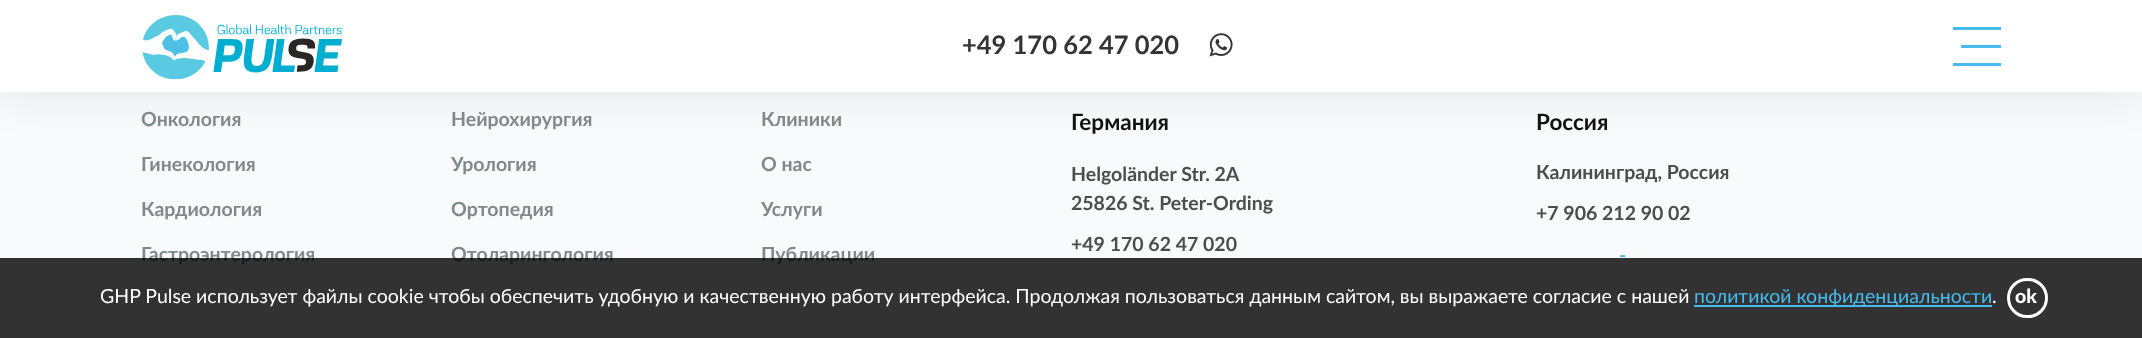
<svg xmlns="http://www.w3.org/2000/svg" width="2142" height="338">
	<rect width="100%" height="100%" fill="#F8FAFB" />
	<rect x="0" y="3" width="2142" height="92" fill="#000101" fill-opacity="0.08" filter="blur(22.5px)" />
	<rect x="0" y="0" width="2142" height="92" fill="#FFFFFF" />
	<image x="142" y="15" width="200" height="65" href="assets/img1.png" />
	<text x="962" y="54" font-family="Lato" font-size="25.5" font-weight="700" fill="#343434">+49 170 62 47 020</text>
	<image x="1209" y="33" width="24" height="24" href="assets/img2.png" />
	<rect x="1953" y="27" width="48" height="3" fill="#45BBEF" />
	<rect x="1961" y="45" width="40" height="3" fill="#45BBEF" />
	<rect x="1953" y="63" width="48" height="3" fill="#45BBEF" />
	<g font-family="Lato" font-size="19.5" font-weight="700" fill="#81898D">
		<text x="141" y="126">Онкология</text>
		<text x="451" y="126">Нейрохирургия</text>
		<text x="141" y="171">Гинекология</text>
		<text x="451" y="171">Урология</text>
		<text x="141" y="216">Кардиология</text>
		<text x="451" y="216">Ортопедия</text>
		<text x="141" y="261">Гастроэнтерология</text>
		<text x="451" y="261">Отоларингология</text>
		<text x="761" y="126">Клиники</text>
		<text x="761" y="171">О нас</text>
		<text x="761" y="216">Услуги</text>
		<text x="761" y="261">Публикации</text>
	</g>
	<text x="1071" y="130" font-family="Lato" font-size="22.5" font-weight="700" fill="#121212">Германия</text>
	<g font-family="Lato" font-size="19.5" font-weight="700" fill="#4D4D4D">
		<text x="1071" y="181">Helgoländer Str. 2A</text>
		<text x="1071" y="210">25826 St. Peter-Ording</text>
		<text x="1071" y="251">+49 170 62 47 020</text>
	</g>
	<text x="1536" y="130" font-family="Lato" font-size="22.5" font-weight="700" fill="#121212">Россия</text>
	<g font-family="Lato" font-size="19.5" font-weight="700" fill="#4D4D4D">
		<text x="1536" y="179">Калининград, Россия</text>
		<text x="1536" y="220">+7 906 212 90 02</text>
	</g>
	<text x="1619" y="262" font-family="Lato" font-size="19.5" font-weight="700" fill="#45BBEF">-</text>
	<rect x="0" y="258" width="2142" height="80" fill="#000000" fill-opacity="0.8" />
	<text x="100" y="303" font-family="Lato" font-size="19.5" fill="#FFFFFF">GHP Pulse использует файлы cookie чтобы обеспечить удобную и качественную работу интерфейса. Продолжая пользоваться данным сайтом, вы выражаете согласие с нашей</text>
	<rect x="1694" y="305" width="298" height="2" fill="#45BBEF" />
	<text x="1694" y="303" font-family="Lato" font-size="19.5" fill="#45BBEF">политикой конфиденциальности</text>
	<text x="1992" y="303" font-family="Lato" font-size="19.5" fill="#FFFFFF">.</text>
	<rect x="2008.5" y="279.5" width="38" height="37" rx="18.5" fill="none" stroke="#FFFFFF" stroke-width="3" />
	<text x="2015" y="303" font-family="Lato" font-size="19.5" font-weight="900" fill="#FFFFFF">ok</text>
</svg>
